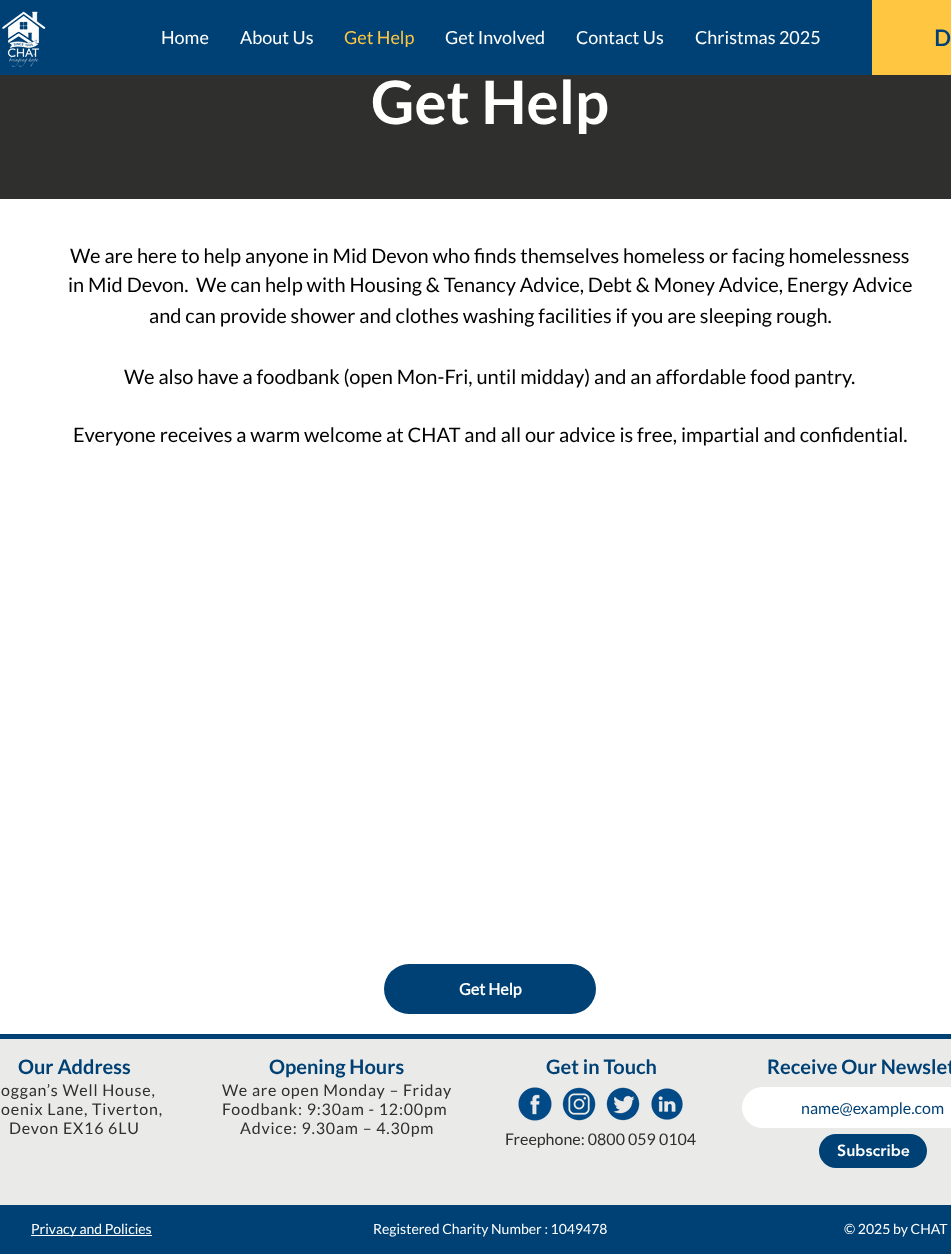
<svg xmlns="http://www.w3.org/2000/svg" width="951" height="1254">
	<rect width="100%" height="100%" fill="#FFFFFF" />
	<rect x="0" y="0" width="872" height="75" fill="#004175" />
	<image x="2" y="11" width="44" height="56" href="assets/img1.png" />
	<g font-family="Lato" font-size="18" fill="#FFFFFE">
		<text x="161" y="44">Home</text>
		<text x="240" y="44">About Us</text>
	</g>
	<text x="344" y="44" font-family="Lato" font-size="18" fill="#FFC642">Get Help</text>
	<g font-family="Lato" font-size="18" fill="#FFFFFE">
		<text x="445" y="44">Get Involved</text>
		<text x="576" y="44">Contact Us</text>
		<text x="695" y="44">Christmas 2025</text>
	</g>
	<rect x="872" y="0" width="79" height="75" fill="#FFC642" />
	<text x="934" y="46" font-family="'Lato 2'" font-size="22" font-weight="700" fill="#004175">D</text>
	<rect x="0" y="75" width="951" height="124" fill="#2F2F2E" />
	<text x="371" y="124" font-family="Lato" font-size="60" font-weight="700" fill="#FFFFFE">Get Help</text>
	<g font-family="Lato" font-size="20" fill="#000000">
		<text x="70" y="263">We are here to help anyone in Mid Devon who finds themselves homeless or facing homelessness</text>
		<text x="68" y="292" xml:space="preserve">in Mid Devon.  We can help with Housing &amp; Tenancy Advice, Debt &amp; Money Advice, Energy Advice</text>
		<text x="149" y="323">and can provide shower and clothes washing facilities if you are sleeping rough.</text>
		<text x="124" y="384">We also have a foodbank (open Mon-Fri, until midday) and an affordable food pantry.</text>
		<text x="73" y="442">Everyone receives a warm welcome at CHAT and all our advice is free, impartial and confidential.</text>
	</g>
	<rect x="384" y="964" width="212" height="50" rx="25" fill="#004175" />
	<text x="459" y="995" font-family="'Lato 2'" font-size="16" font-weight="700" fill="#FFFFFE">Get Help</text>
	<rect x="0" y="1039" width="951" height="166" fill="#EAEAE8" />
	<rect x="0" y="1034" width="951" height="5" fill="#004175" />
	<g font-family="Lato" font-size="20" font-weight="700" fill="#004175">
		<text x="18" y="1074">Our Address</text>
		<text x="269" y="1074">Opening Hours</text>
		<text x="546" y="1074">Get in Touch</text>
		<text x="767" y="1074">Receive Our Newslet</text>
	</g>
	<g font-family="Lato" font-size="16" letter-spacing="0.8" fill="#2F2F2E">
		<text x="1" y="1096">oggan’s Well House,</text>
		<text x="1" y="1115">oenix Lane, Tiverton,</text>
		<text x="9" y="1134">Devon EX16 6LU</text>
		<text x="222" y="1096">We are open Monday – Friday</text>
		<text x="222" y="1115">Foodbank: 9:30am - 12:00pm</text>
		<text x="240" y="1134">Advice: 9.30am – 4.30pm</text>
	</g>
	<image x="518" y="1087" width="34" height="34" href="assets/img2.png" />
	<image x="562" y="1087" width="34" height="34" href="assets/img3.png" />
	<image x="606" y="1087" width="34" height="34" href="assets/img4.png" />
	<image x="651" y="1088" width="32" height="32" href="assets/img5.png" />
	<rect x="742" y="1087" width="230" height="41" rx="20.5" fill="#FFFFFF" />
	<text x="801" y="1114" font-family="Lato" font-size="16" fill="#004175">name@example.com</text>
	<rect x="819" y="1134" width="108" height="34" rx="17" fill="#004175" />
	<text x="837" y="1156" font-family="'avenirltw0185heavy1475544'" font-size="16" font-weight="900" fill="#FFFFFE">Subscribe</text>
	<text x="505" y="1145" font-family="Lato" font-size="16" fill="#2F2F2E">Freephone: 0800 059 0104</text>
	<rect x="0" y="1205" width="951" height="49" fill="#004175" />
	<rect x="31" y="1235" width="121" height="1" fill="#FFFFFF" />
	<g font-family="Lato" font-size="14" fill="#FFFFFE">
		<text x="31" y="1234">Privacy and Policies</text>
		<text x="373" y="1234">Registered Charity Number : 1049478</text>
		<text x="844" y="1234">© 2025 by CHAT</text>
	</g>
</svg>
